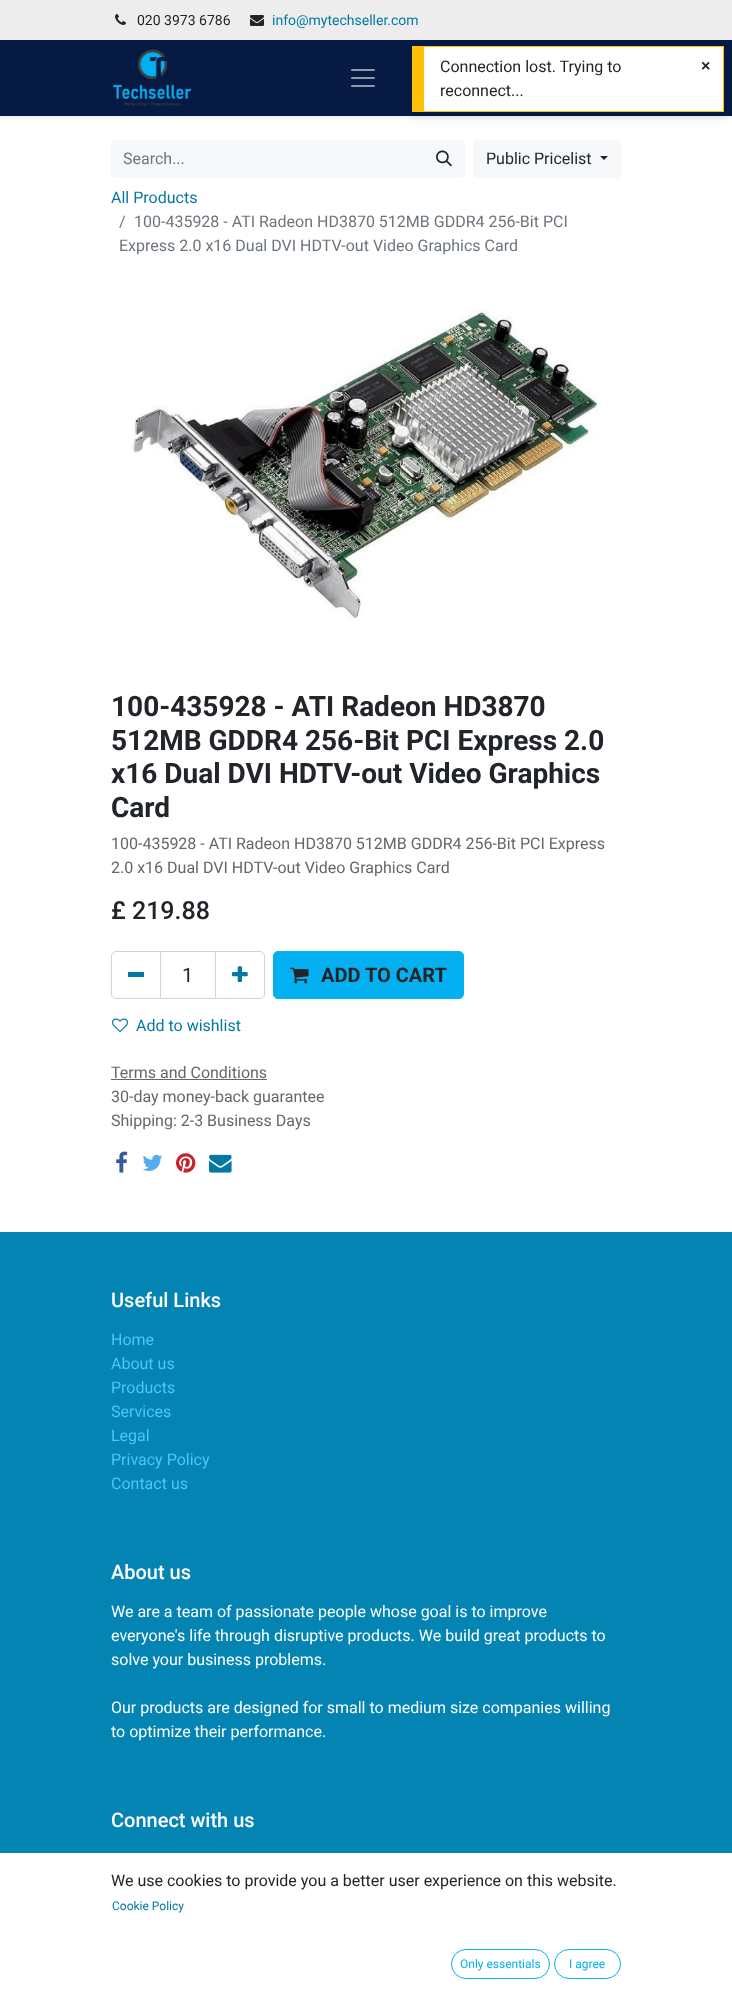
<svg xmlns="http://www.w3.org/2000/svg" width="732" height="1995">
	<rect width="100%" height="100%" fill="#FFFFFF" />
	<rect x="0" y="0" width="732" height="40" fill="#EDEDED" />
	<image x="115" y="14" width="11" height="11" href="assets/img1.png" />
	<text x="137" y="25" font-family="Roboto" font-size="14" fill="#212529">020 3973 6786</text>
	<image x="250" y="15" width="14" height="11" href="assets/img2.png" />
	<text x="272" y="25" font-family="Roboto" font-size="14" fill="#0379A4">info@mytechseller.com</text>
	<rect x="0" y="42" width="732" height="76" fill="#000000" fill-opacity="0.07" filter="blur(2px)" />
	<rect x="0" y="40" width="732" height="76" fill="#071A44" />
	<image x="113" y="49" width="79" height="58" href="assets/img3.png" />
	<image x="351" y="69" width="24" height="18" href="assets/img4.png" />
	<path d="M115 140H424V178H115C113 178 111 176 111 174V144C111 142 113 140 115 140Z" fill="#F6F8F9" />
	<text x="123" y="164" font-family="Roboto" font-size="16" fill="#6C757D">Search...</text>
	<path d="M423 140H461C463 140 465 142 465 144V174C465 176 463 178 461 178H423Z" fill="#F6F8F9" />
	<image x="436" y="150" width="16" height="17" href="assets/img5.png" />
	<rect x="473" y="140" width="148" height="38" rx="4" fill="#F6F8F9" />
	<text x="486" y="164" font-family="Roboto" font-size="16" fill="#212529">Public Pricelist</text>
	<path d="M600 156H608L604 160Z" fill="#212529" />
	<text x="111" y="203" font-family="Roboto" font-size="16" fill="#0379A4">All Products</text>
	<g font-family="Roboto" font-size="16" fill="#6C757D">
		<text x="119" y="227">/</text>
		<text x="134" y="227">100-435928 - ATI Radeon HD3870 512MB GDDR4 256-Bit PCI</text>
		<text x="119" y="251">Express 2.0 x16 Dual DVI HDTV-out Video Graphics Card</text>
	</g>
	<image x="130" y="310" width="468" height="311" href="assets/img6.png" />
	<g font-family="Roboto" font-size="28" font-weight="700" fill="#212529">
		<text x="111" y="716">100-435928 - ATI Radeon HD3870</text>
		<text x="111" y="750">512MB GDDR4 256-Bit PCI Express 2.0</text>
		<text x="111" y="783">x16 Dual DVI HDTV-out Video Graphics</text>
		<text x="111" y="817">Card</text>
	</g>
	<g font-family="Roboto" font-size="16" fill="#646669">
		<text x="111" y="849">100-435928 - ATI Radeon HD3870 512MB GDDR4 256-Bit PCI Express</text>
		<text x="111" y="873">2.0 x16 Dual DVI HDTV-out Video Graphics Card</text>
	</g>
	<text x="111" y="919" font-family="Roboto" font-size="25" font-weight="500" fill="#212529">£ 219.88</text>
	<rect x="160.5" y="951.5" width="55" height="47" fill="none" stroke="#CED4DA" />
	<path d="M116 951.5H160.5V998.5H116C113.5 998.5 111.5 996.5 111.5 994V956C111.5 953.5 113.5 951.5 116 951.5Z" fill="none" stroke="#CED4DA" />
	<rect x="128" y="972" width="16" height="5" fill="#0379A4" />
	<text x="182" y="982" font-family="Roboto" font-size="20" fill="#212529">1</text>
	<path d="M215.5 951.5H260C262.5 951.5 264.5 953.5 264.5 956V994C264.5 996.5 262.5 998.5 260 998.5H215.5Z" fill="none" stroke="#CED4DA" />
	<image x="232" y="966" width="16" height="16" href="assets/img7.png" />
	<rect x="273.5" y="951.5" width="190" height="47" rx="4.5" fill="#04B0EF" stroke="#04B0EF" />
	<image x="290" y="967" width="19" height="17" href="assets/img8.png" />
	<text x="321" y="982" font-family="Roboto" font-size="20" font-weight="700" fill="#212529">ADD TO CART</text>
	<image x="112" y="1018" width="16" height="15" href="assets/img9.png" />
	<text x="136" y="1031" font-family="Roboto" font-size="16" fill="#0379A4">Add to wishlist</text>
	<text x="111" y="1078" font-family="Roboto" font-size="16" fill="#646669">Terms and Conditions</text>
	<rect x="111" y="1079" width="156" height="1" fill="#646669" />
	<g font-family="Roboto" font-size="16" fill="#646669">
		<text x="111" y="1102">30-day money-back guarantee</text>
		<text x="111" y="1126">Shipping: 2-3 Business Days</text>
	</g>
	<image x="116" y="1151" width="12" height="22" href="assets/img10.png" />
	<image x="142" y="1154" width="21" height="17" href="assets/img11.png" />
	<image x="176" y="1153" width="20" height="20" href="assets/img12.png" />
	<image x="209" y="1154" width="23" height="19" href="assets/img13.png" />
	<rect x="0" y="1232" width="732" height="621" fill="#0384B3" />
	<text x="111" y="1307" font-family="Roboto" font-size="20" font-weight="500" fill="#FFFFFF">Useful Links</text>
	<g font-family="Roboto" font-size="16" fill="#44CAFC">
		<text x="111" y="1345">Home</text>
		<text x="111" y="1369">About us</text>
		<text x="111" y="1393">Products</text>
		<text x="111" y="1417">Services</text>
		<text x="111" y="1441">Legal</text>
		<text x="111" y="1465">Privacy Policy</text>
		<text x="111" y="1489">Contact us</text>
	</g>
	<text x="111" y="1579" font-family="Roboto" font-size="20" font-weight="500" fill="#FFFFFF">About us</text>
	<g font-family="Roboto" font-size="16" fill="#FFFFFF">
		<text x="111" y="1617">We are a team of passionate people whose goal is to improve</text>
		<text x="111" y="1641">everyone's life through disruptive products. We build great products to</text>
		<text x="111" y="1665">solve your business problems.</text>
		<text x="111" y="1713">Our products are designed for small to medium size companies willing</text>
		<text x="111" y="1737">to optimize their performance.</text>
	</g>
	<text x="111" y="1827" font-family="Roboto" font-size="20" font-weight="500" fill="#FFFFFF">Connect with us</text>
	<text x="111" y="1886" font-family="Roboto" font-size="16" fill="#212529">We use cookies to provide you a better user experience on this website.</text>
	<text x="112" y="1910" font-family="Roboto" font-size="12" fill="#0379A4">Cookie Policy</text>
	<rect x="451.5" y="1949.5" width="98" height="29" rx="14.5" fill="none" stroke="#04B0EF" />
	<text x="460" y="1968" font-family="Roboto" font-size="12" fill="#04B0EF">Only essentials</text>
	<rect x="554.5" y="1949.5" width="66" height="29" rx="14.5" fill="none" stroke="#04B0EF" />
	<text x="569" y="1968" font-family="Roboto" font-size="12" fill="#04B0EF">I agree</text>
	<rect x="412" y="50" width="312" height="66" fill="#000000" fill-opacity="0.1" filter="blur(6px)" />
	<rect x="424" y="47" width="299" height="64" fill="#FFFFFF" />
	<rect x="424" y="46" width="300" height="1" fill="#FFC107" />
	<rect x="723" y="46" width="1" height="66" fill="#FFC107" />
	<rect x="424" y="111" width="300" height="1" fill="#FFC107" />
	<rect x="412" y="46" width="12" height="66" fill="#FFC107" />
	<g font-family="Roboto" font-size="16" fill="#212529">
		<text x="440" y="72">Connection lost. Trying to</text>
		<text x="440" y="96">reconnect...</text>
	</g>
	<text x="701" y="71" font-family="Liberation Sans" font-size="16" font-weight="700" fill="#212529">×</text>
</svg>
